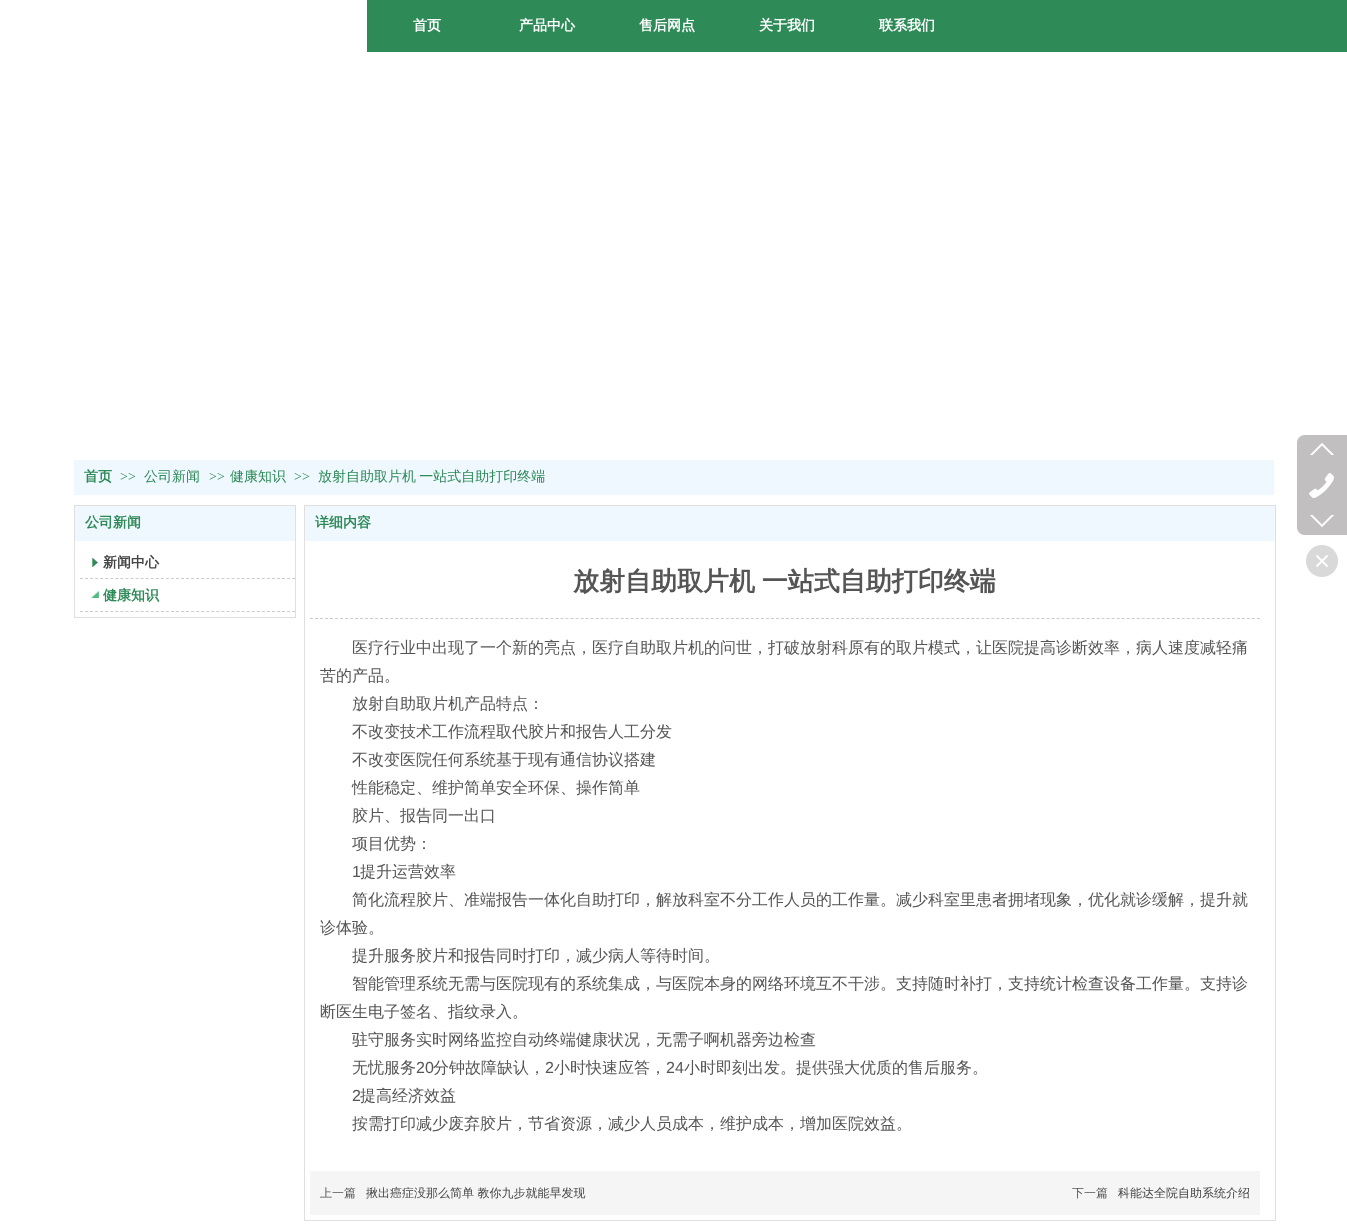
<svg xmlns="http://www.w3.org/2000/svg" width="1347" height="1228">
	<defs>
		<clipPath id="clip1"><rect x="80" y="546" width="215" height="33" /></clipPath>
		<clipPath id="clip2"><rect x="80" y="579" width="215" height="33" /></clipPath>
	</defs>
	<rect width="100%" height="100%" fill="#FFFFFF" />
	<rect x="367" y="0" width="980" height="52" fill="#2E8A57" />
	<g font-family="WenQuanYi Zen Hei" font-size="14" font-weight="700" fill="#FFFFFF">
		<text x="413" y="30">首页</text>
		<text x="519" y="30">产品中心</text>
		<text x="639" y="30">售后网点</text>
		<text x="759" y="30">关于我们</text>
		<text x="879" y="30">联系我们</text>
	</g>
	<rect x="74" y="460" width="1200" height="35" fill="#EFF8FF" />
	<text x="84" y="481" font-family="WenQuanYi Zen Hei" font-size="14" font-weight="700" fill="#2E8A57">首页</text>
	<text x="120" y="481" font-family="Liberation Serif" font-size="14" fill="#2E8A57">&gt;&gt;</text>
	<text x="144" y="481" font-family="WenQuanYi Zen Hei" font-size="14" font-weight="500" fill="#2E8A57">公司新闻</text>
	<text x="209" y="481" font-family="Liberation Serif" font-size="14" fill="#2E8A57">&gt;&gt;</text>
	<text x="230" y="481" font-family="WenQuanYi Zen Hei" font-size="14" font-weight="500" fill="#2E8A57">健康知识</text>
	<text x="294" y="481" font-family="Liberation Serif" font-size="14" fill="#2E8A57">&gt;&gt;</text>
	<text x="318" y="481" word-spacing="-1" font-family="WenQuanYi Zen Hei" font-size="14" font-weight="500" fill="#2E8A57">放射自助取片机 一站式自助打印终端</text>
	<rect x="74.5" y="505.5" width="221" height="112" fill="none" stroke="#E0DFDD" />
	<rect x="75" y="506" width="220" height="35" fill="#EFF8FF" />
	<text x="85" y="527" font-family="WenQuanYi Zen Hei" font-size="14" font-weight="700" fill="#2E8A57">公司新闻</text>
	<g clip-path="url(#clip1)">
		<path d="M80 578.5H300" fill="none" stroke="#CCCCCC" stroke-dasharray="3 2.05" />
	</g>
	<image x="92" y="558" width="6" height="9" href="assets/img1.png" />
	<text x="103" y="567" font-family="WenQuanYi Zen Hei" font-size="14" font-weight="700" fill="#444444">新闻中心</text>
	<g clip-path="url(#clip2)">
		<path d="M80 611.5H300" fill="none" stroke="#CCCCCC" stroke-dasharray="3 2.05" />
	</g>
	<image x="91" y="591" width="8" height="7" href="assets/img2.png" />
	<text x="103" y="600" font-family="WenQuanYi Zen Hei" font-size="14" font-weight="700" fill="#2E8A57">健康知识</text>
	<rect x="304.5" y="505.5" width="971" height="715" fill="none" stroke="#E0DFDD" />
	<rect x="305" y="506" width="970" height="35" fill="#EFF8FF" />
	<text x="315" y="527" font-family="WenQuanYi Zen Hei" font-size="14" font-weight="700" fill="#2E8A57">详细内容</text>
	<path d="M310 618.5H1260" fill="none" stroke="#CCCCCC" stroke-dasharray="3 2.01" />
	<text x="573" y="590" word-spacing="-1" font-family="WenQuanYi Zen Hei" font-size="26" font-weight="700" fill="#555555">放射自助取片机 一站式自助打印终端</text>
	<g font-family="WenQuanYi Zen Hei" font-size="16" font-weight="500" fill="#555555">
		<text x="352" y="653">医疗行业中出现了一个新的亮点，医疗自助取片机的问世，打破放射科原有的取片模式，让医院提高诊断效率，病人速度减轻痛</text>
		<text x="320" y="681">苦的产品。</text>
		<text x="352" y="709">放射自助取片机产品特点：</text>
		<text x="352" y="737">不改变技术工作流程取代胶片和报告人工分发</text>
		<text x="352" y="765">不改变医院任何系统基于现有通信协议搭建</text>
		<text x="352" y="793">性能稳定、维护简单安全环保、操作简单</text>
		<text x="352" y="821">胶片、报告同一出口</text>
		<text x="352" y="849">项目优势：</text>
	</g>
	<text x="352" y="877" font-family="Liberation Sans" font-size="16" fill="#555555">1</text>
	<g font-family="WenQuanYi Zen Hei" font-size="16" font-weight="500" fill="#555555">
		<text x="360" y="877">提升运营效率</text>
		<text x="352" y="905">简化流程胶片、准端报告一体化自助打印，解放科室不分工作人员的工作量。减少科室里患者拥堵现象，优化就诊缓解，提升就</text>
		<text x="320" y="933">诊体验。</text>
		<text x="352" y="961">提升服务胶片和报告同时打印，减少病人等待时间。</text>
		<text x="352" y="989">智能管理系统无需与医院现有的系统集成，与医院本身的网络环境互不干涉。支持随时补打，支持统计检查设备工作量。支持诊</text>
		<text x="320" y="1017">断医生电子签名、指纹录入。</text>
		<text x="352" y="1045">驻守服务实时网络监控自动终端健康状况，无需子啊机器旁边检查</text>
		<text x="352" y="1073">无忧服务</text>
	</g>
	<text x="416" y="1073" font-family="Liberation Sans" font-size="16" fill="#555555">20</text>
	<text x="433" y="1073" font-family="WenQuanYi Zen Hei" font-size="16" font-weight="500" fill="#555555">分钟故障缺认，</text>
	<text x="545" y="1073" font-family="Liberation Sans" font-size="16" fill="#555555">2</text>
	<text x="554" y="1073" font-family="WenQuanYi Zen Hei" font-size="16" font-weight="500" fill="#555555">小时快速应答，</text>
	<text x="666" y="1073" font-family="Liberation Sans" font-size="16" fill="#555555">24</text>
	<text x="684" y="1073" font-family="WenQuanYi Zen Hei" font-size="16" font-weight="500" fill="#555555">小时即刻出发。提供强大优质的售后服务。</text>
	<text x="352" y="1101" font-family="Liberation Sans" font-size="16" fill="#555555">2</text>
	<g font-family="WenQuanYi Zen Hei" font-size="16" font-weight="500" fill="#555555">
		<text x="360" y="1101">提高经济效益</text>
		<text x="352" y="1129">按需打印减少废弃胶片，节省资源，减少人员成本，维护成本，增加医院效益。</text>
	</g>
	<rect x="310" y="1171" width="950" height="44" fill="#F5F5F5" />
	<text x="320" y="1197" font-family="WenQuanYi Zen Hei" font-size="12" font-weight="500" fill="#555555">上一篇</text>
	<text x="366" y="1197" font-family="WenQuanYi Zen Hei" font-size="12" font-weight="500" fill="#444444">揪出癌症没那么简单 教你九步就能早发现</text>
	<text x="1072" y="1197" font-family="WenQuanYi Zen Hei" font-size="12" font-weight="500" fill="#555555">下一篇</text>
	<text x="1118" y="1197" font-family="WenQuanYi Zen Hei" font-size="12" font-weight="500" fill="#444444">科能达全院自助系统介绍</text>
	<image x="1297" y="435" width="7" height="7" href="assets/img3.png" />
	<rect x="1304" y="435" width="43" height="7" fill="#C1BFC0" />
	<rect x="1297" y="442" width="50" height="86" fill="#C1BFC0" />
	<image x="1310" y="443" width="24" height="12" href="assets/img4.png" />
	<image x="1309" y="473" width="25" height="25" href="assets/img5.png" />
	<image x="1310" y="515" width="24" height="12" href="assets/img6.png" />
	<image x="1297" y="528" width="7" height="7" href="assets/img7.png" />
	<rect x="1304" y="528" width="43" height="7" fill="#C1BFC0" />
	<image x="1306" y="545" width="32" height="32" href="assets/img8.png" />
</svg>
